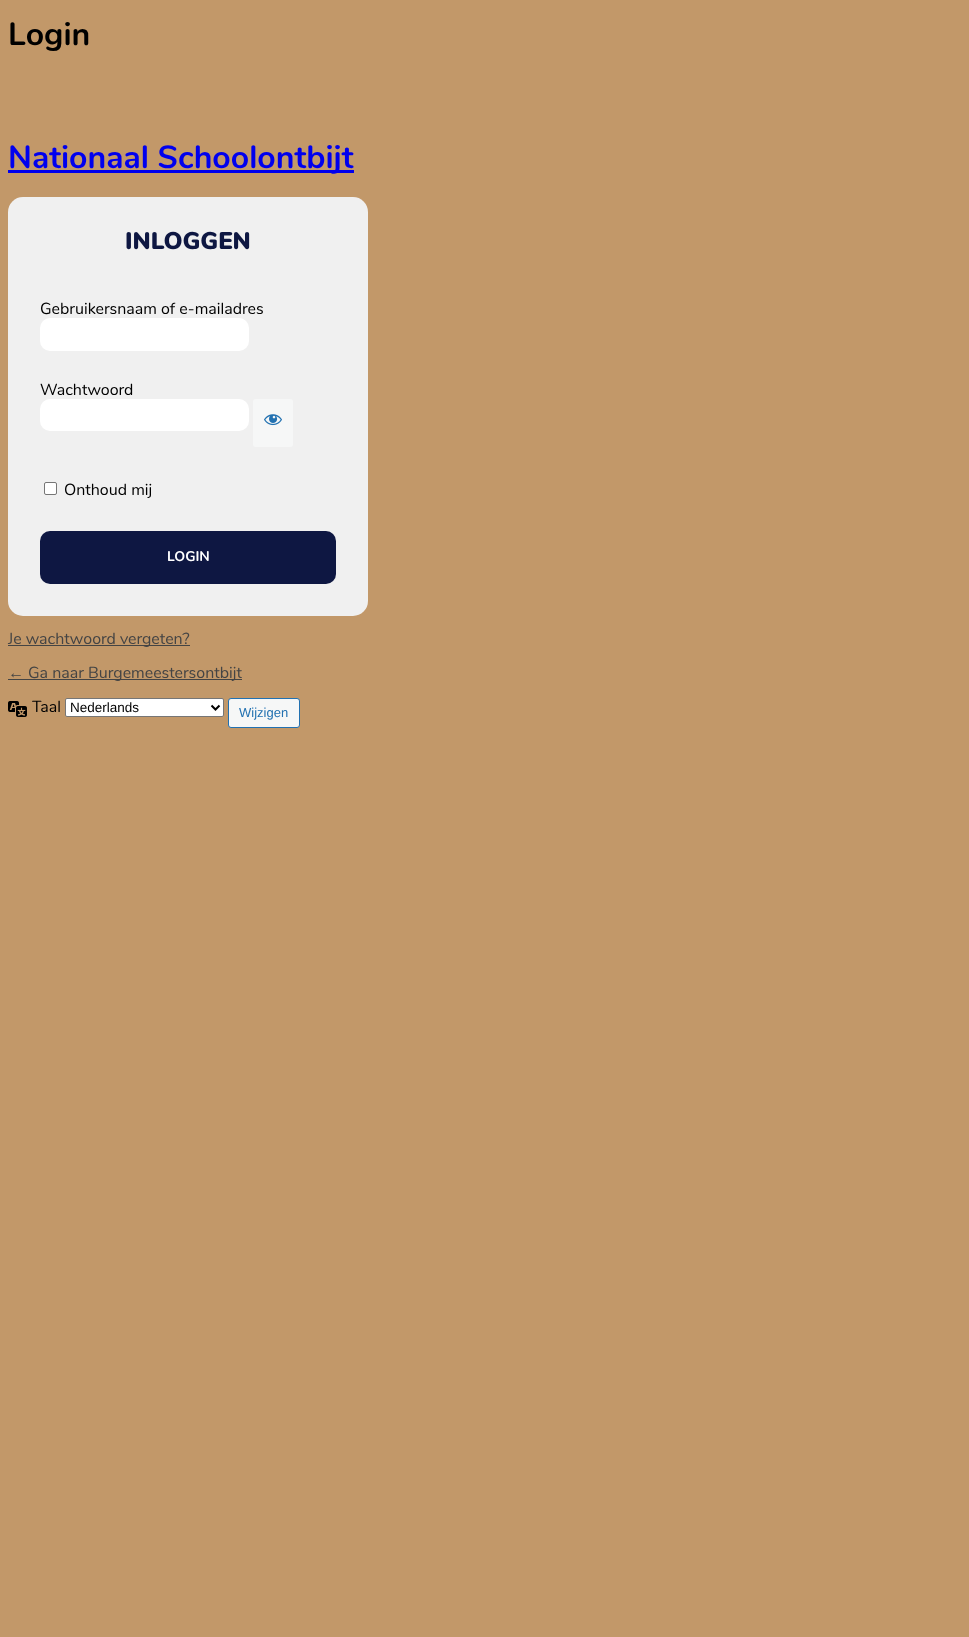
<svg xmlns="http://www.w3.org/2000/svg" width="969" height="1637">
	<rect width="100%" height="100%" fill="#C29869" />
	<text x="8" y="45" font-family="Nunito" font-size="32" font-weight="700" fill="#000000">Login</text>
	<rect x="8" y="170" width="346" height="3" fill="#0000EE" />
	<text x="8" y="168" font-family="Nunito" font-size="32" font-weight="700" fill="#0000EE">Nationaal Schoolontbijt</text>
	<rect x="8" y="197" width="360" height="419" rx="15" fill="#F0F0F0" />
	<text x="125" y="249" font-family="Nunito" font-size="24" font-weight="900" fill="#0E1742">INLOGGEN</text>
	<text x="40" y="314" font-family="Nunito" font-size="16" fill="#000000">Gebruikersnaam of e-mailadres</text>
	<rect x="40" y="318" width="209" height="33" rx="10" fill="#FFFFFF" />
	<text x="40" y="395" font-family="Nunito" font-size="16" fill="#000000">Wachtwoord</text>
	<rect x="40" y="399" width="209" height="32" rx="10" fill="#FFFFFF" />
	<rect x="253" y="399" width="40" height="48" rx="3" fill="#F6F7F7" />
	<image x="264" y="414" width="18" height="12" href="assets/img1.png" />
	<rect x="44.5" y="482.5" width="12" height="12" rx="1.5" fill="#FFFFFF" stroke="#767676" />
	<text x="64" y="495" font-family="Nunito" font-size="16" fill="#000000">Onthoud mij</text>
	<rect x="40" y="531" width="296" height="53" rx="10" fill="#0E1742" />
	<text x="167" y="561" font-family="Nunito" font-size="14" font-weight="700" fill="#FFFFFF">LOGIN</text>
	<rect x="8" y="645" width="182" height="1" fill="#444444" />
	<text x="8" y="644" font-family="Nunito" font-size="16" fill="#444444">Je wachtwoord vergeten?</text>
	<text x="8" y="678" font-family="Liberation Sans" font-size="16" fill="#444444">←</text>
	<rect x="8" y="679" width="234" height="1" fill="#444444" />
	<text x="28" y="678" font-family="Nunito" font-size="16" fill="#444444">Ga naar Burgemeestersontbijt</text>
	<image x="8" y="701" width="19" height="16" href="assets/img2.png" />
	<text x="32" y="712" font-family="Nunito" font-size="16" fill="#000000">Taal</text>
	<rect x="65.5" y="698.5" width="158" height="18" rx="1.5" fill="#FFFFFF" stroke="#767676" />
	<path d="M211.5 705.5L215.5 709.5L219.5 705.5" fill="none" stroke="#000000" stroke-width="2" />
	<text x="70" y="712" font-family="Liberation Sans" font-size="13.5" fill="#000000">Nederlands</text>
	<rect x="228.5" y="698.5" width="71" height="29" rx="2.5" fill="#F6F7F7" stroke="#2271B1" />
	<text x="239" y="717" font-family="Liberation Sans" font-size="13" fill="#2271B1">Wijzigen</text>
</svg>
